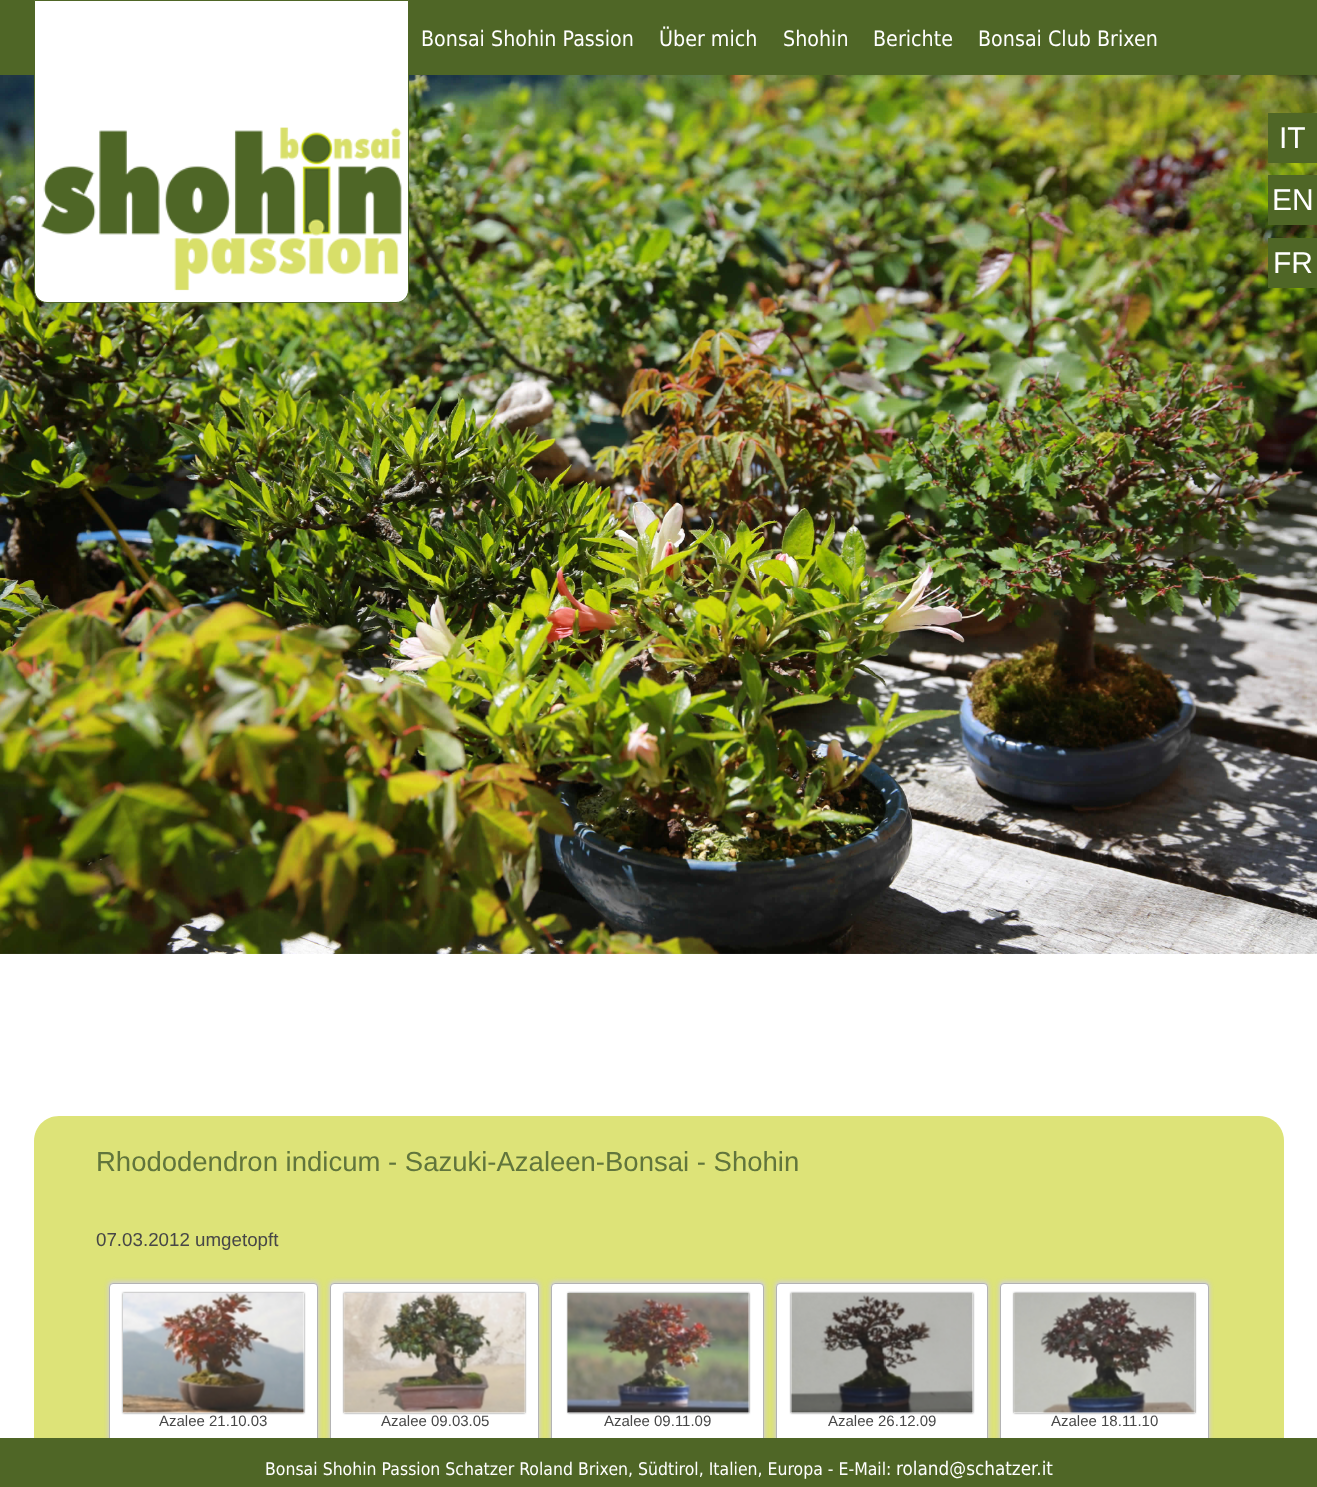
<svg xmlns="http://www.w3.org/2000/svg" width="1317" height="1487">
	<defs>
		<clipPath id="clip1"><path d="M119 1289H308V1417H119ZM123 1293H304V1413H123Z" clip-rule="evenodd" /></clipPath>
		<clipPath id="clip2"><path d="M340 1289H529V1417H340ZM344 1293H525V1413H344Z" clip-rule="evenodd" /></clipPath>
		<clipPath id="clip3"><path d="M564 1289H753V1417H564ZM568 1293H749V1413H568Z" clip-rule="evenodd" /></clipPath>
		<clipPath id="clip4"><path d="M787 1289H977V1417H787ZM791 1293H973V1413H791Z" clip-rule="evenodd" /></clipPath>
		<clipPath id="clip5"><path d="M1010 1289H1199V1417H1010ZM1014 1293H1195V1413H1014Z" clip-rule="evenodd" /></clipPath>
	</defs>
	<rect width="100%" height="100%" fill="#FFFFFF" />
	<rect x="0" y="0" width="1317" height="75" fill="#4F6626" />
	<image x="0" y="75" width="1317" height="879" href="assets/img2.png" />
	<path d="M34.5 .5H408.5V290C408.5 297 403 302.5 396 302.5H47C40 302.5 34.5 297 34.5 290Z" fill="#FFFFFF" stroke="#4F6626" />
	<image x="41" y="127" width="361" height="164" href="assets/img1.png" />
	<g font-family="DejaVu Sans" font-size="21.25" fill="#FFFFFF">
		<text x="421" y="46">Bonsai Shohin Passion</text>
		<text x="659" y="46">Über mich</text>
		<text x="783" y="46">Shohin</text>
		<text x="873" y="46">Berichte</text>
		<text x="978" y="46">Bonsai Club Brixen</text>
	</g>
	<rect x="1268" y="113" width="49" height="50" fill="#4F6626" />
	<text x="1279" y="148" font-family="Liberation Sans" font-size="30" fill="#FFFFFF">IT</text>
	<rect x="1268" y="175" width="49" height="50" fill="#4F6626" />
	<text x="1272" y="210" font-family="Liberation Sans" font-size="30" fill="#FFFFFF">EN</text>
	<rect x="1268" y="238" width="49" height="50" fill="#4F6626" />
	<text x="1273" y="273" font-family="Liberation Sans" font-size="30" fill="#FFFFFF">FR</text>
	<path d="M59 1116H1259C1273 1116 1284 1127 1284 1141V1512H34V1141C34 1127 45 1116 59 1116Z" fill="#DDE378" />
	<text x="96" y="1171" font-family="Liberation Sans" font-size="27.5" fill="#61753C">Rhododendron indicum - Sazuki-Azaleen-Bonsai - Shohin</text>
	<text x="96" y="1246" font-family="Liberation Sans" font-size="18.75" fill="#474747">07.03.2012 umgetopft</text>
	<rect x="108" y="1281" width="211" height="163" rx="5" fill="#D1D1D1" filter="blur(2px)" />
	<rect x="109.5" y="1283.5" width="208" height="159" rx="3.5" fill="#FFFFFF" stroke="#B3B3B3" />
	<g clip-path="url(#clip1)">
		<rect x="123" y="1293" width="181" height="120" fill="#757575" filter="blur(1px)" />
	</g>
	<image x="123" y="1293" width="182" height="120" href="assets/img3.png" />
	<text x="159" y="1426" font-family="Liberation Sans" font-size="15" fill="#474747">Azalee 21.10.03</text>
	<rect x="329" y="1281" width="211" height="163" rx="5" fill="#D1D1D1" filter="blur(2px)" />
	<rect x="330.5" y="1283.5" width="208" height="159" rx="3.5" fill="#FFFFFF" stroke="#B3B3B3" />
	<g clip-path="url(#clip2)">
		<rect x="344" y="1293" width="181" height="120" fill="#757575" filter="blur(1px)" />
	</g>
	<image x="343" y="1293" width="183" height="120" href="assets/img4.png" />
	<text x="381" y="1426" font-family="Liberation Sans" font-size="15" fill="#474747">Azalee 09.03.05</text>
	<rect x="550" y="1281" width="215" height="163" rx="5" fill="#D1D1D1" filter="blur(2px)" />
	<rect x="551.5" y="1283.5" width="212" height="159" rx="3.5" fill="#FFFFFF" stroke="#B3B3B3" />
	<g clip-path="url(#clip3)">
		<rect x="568" y="1293" width="181" height="120" fill="#757575" filter="blur(1px)" />
	</g>
	<image x="567" y="1293" width="183" height="120" href="assets/img5.png" />
	<text x="604" y="1426" font-family="Liberation Sans" font-size="15" fill="#474747">Azalee 09.11.09</text>
	<rect x="775" y="1281" width="214" height="163" rx="5" fill="#D1D1D1" filter="blur(2px)" />
	<rect x="776.5" y="1283.5" width="211" height="159" rx="3.5" fill="#FFFFFF" stroke="#B3B3B3" />
	<g clip-path="url(#clip4)">
		<rect x="791" y="1293" width="182" height="120" fill="#757575" filter="blur(1px)" />
	</g>
	<image x="790" y="1293" width="183" height="120" href="assets/img6.png" />
	<text x="828" y="1426" font-family="Liberation Sans" font-size="15" fill="#474747">Azalee 26.12.09</text>
	<rect x="999" y="1281" width="211" height="163" rx="5" fill="#D1D1D1" filter="blur(2px)" />
	<rect x="1000.5" y="1283.5" width="208" height="159" rx="3.5" fill="#FFFFFF" stroke="#B3B3B3" />
	<g clip-path="url(#clip5)">
		<rect x="1014" y="1293" width="181" height="120" fill="#757575" filter="blur(1px)" />
	</g>
	<image x="1013" y="1293" width="183" height="120" href="assets/img7.png" />
	<text x="1051" y="1426" font-family="Liberation Sans" font-size="15" fill="#474747">Azalee 18.11.10</text>
	<rect x="0" y="1438" width="1317" height="49" fill="#4F6626" />
	<text x="265" y="1475" font-family="DejaVu Sans" font-size="17.5" fill="#FFFFFF">Bonsai Shohin Passion Schatzer Roland Brixen, Südtirol, Italien, Europa - E-Mail:</text>
	<text x="896" y="1475" font-family="DejaVu Sans" font-size="18.75" fill="#FFFFFF">roland@schatzer.it</text>
</svg>
